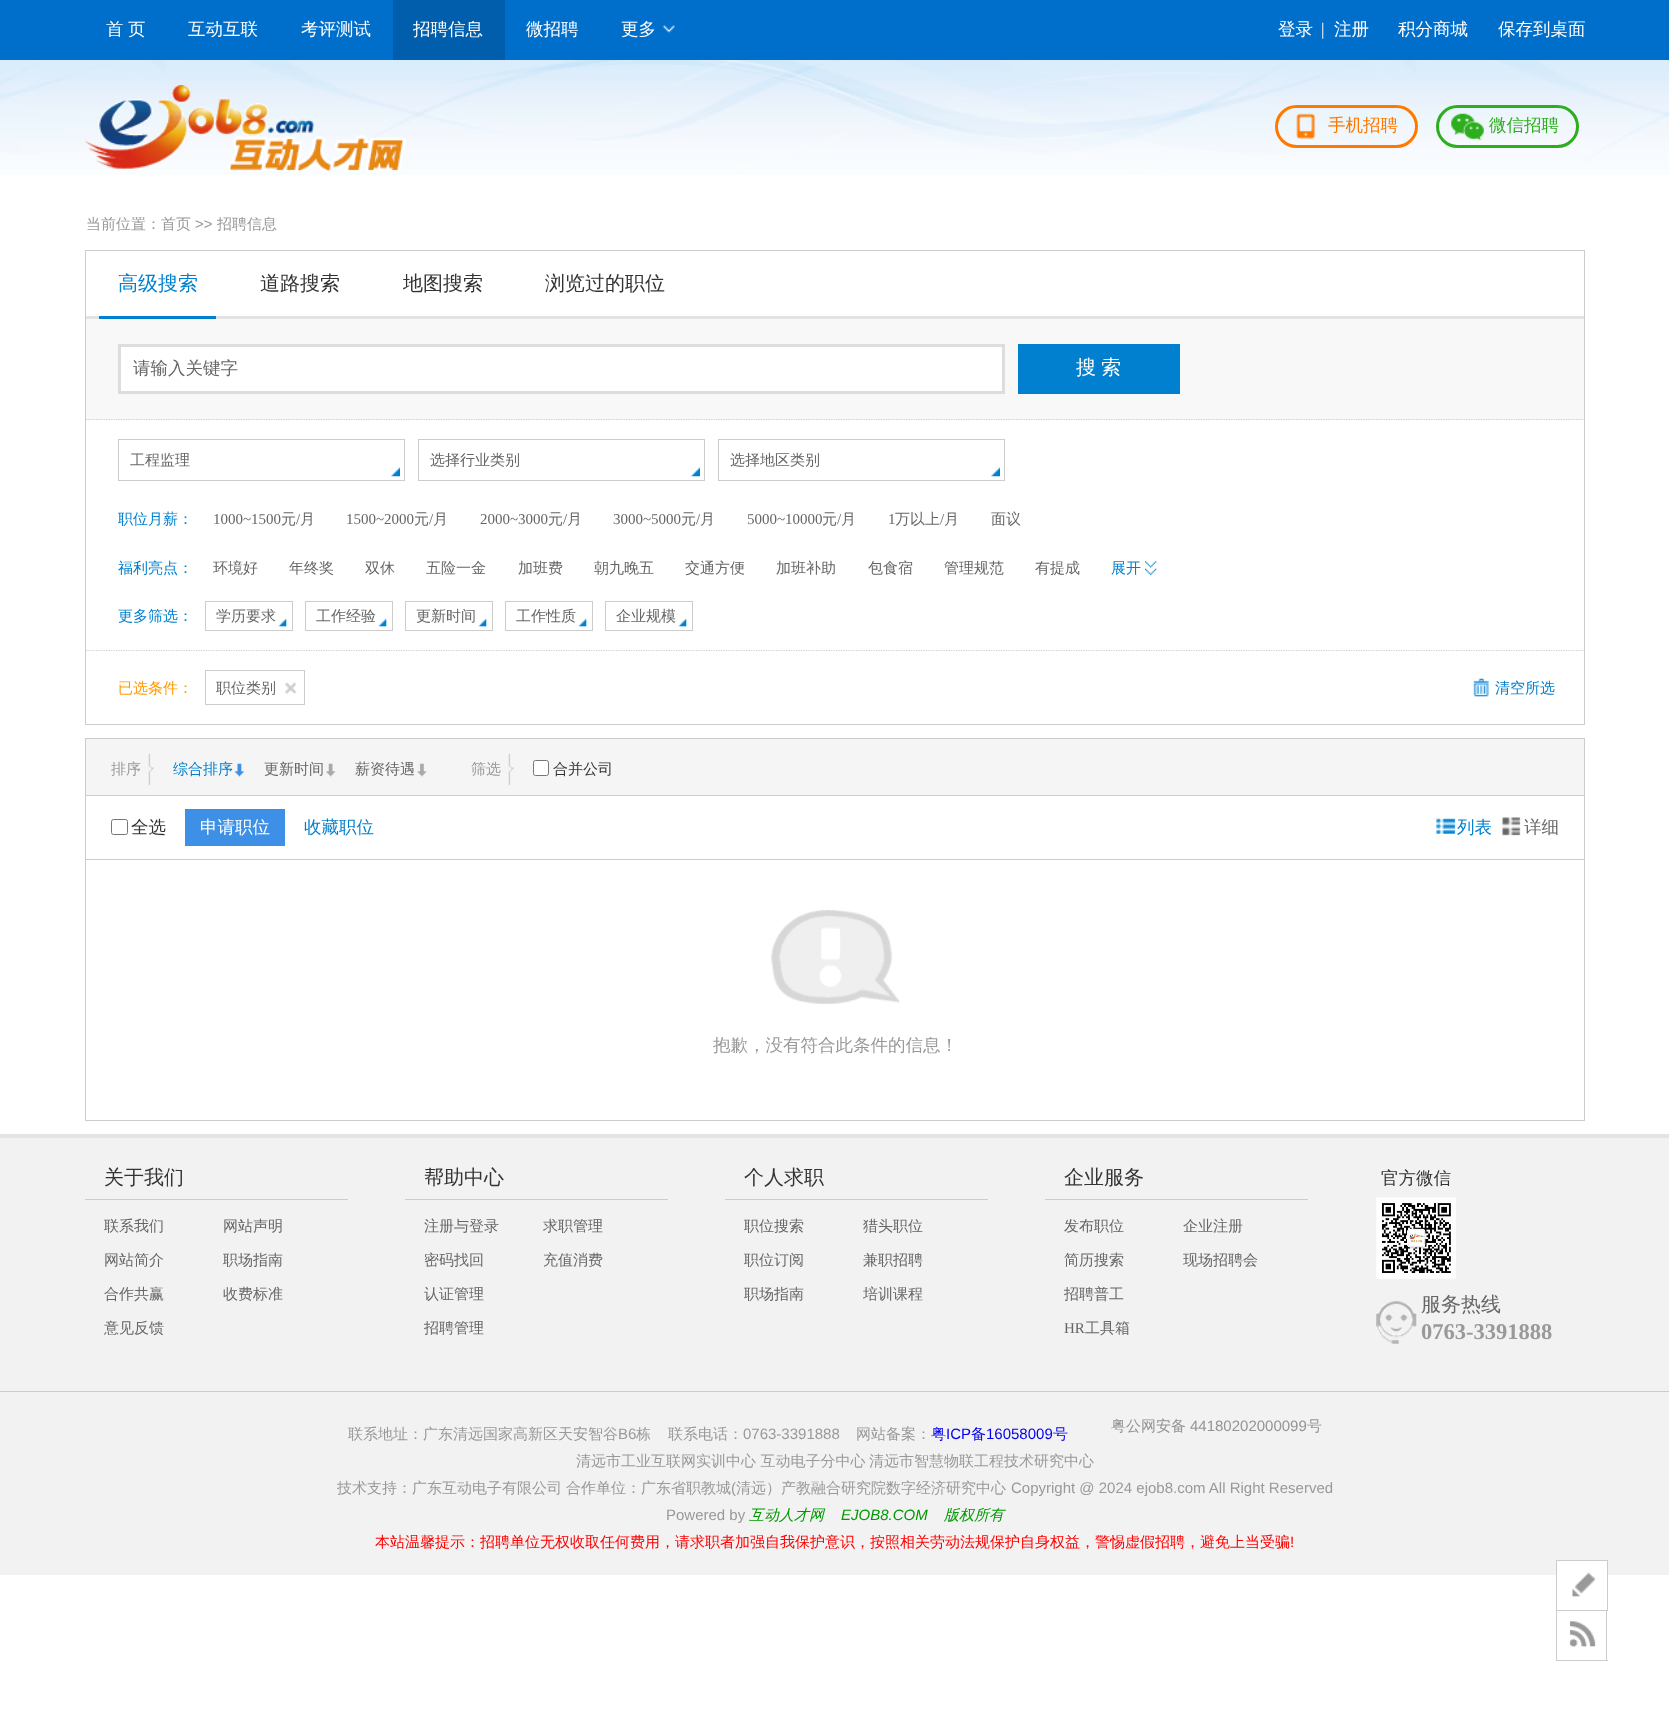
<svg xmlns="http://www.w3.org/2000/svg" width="1669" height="1723">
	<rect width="100%" height="100%" fill="#FFFFFF" />
	<image x="0" y="60" width="1669" height="115" href="assets/img1.png" />
	<rect x="0" y="0" width="1669" height="60" fill="#006FCB" />
	<g font-family="WenQuanYi Zen Hei" font-size="17.5" font-weight="500" fill="#FFFFFF">
		<text x="106" y="35">首</text>
		<text x="128" y="35">页</text>
		<text x="188" y="35">互动互联</text>
		<text x="301" y="35">考评测试</text>
	</g>
	<rect x="393" y="0" width="112" height="60" fill="#005EAC" />
	<g font-family="WenQuanYi Zen Hei" font-size="17.5" font-weight="500" fill="#FFFFFF">
		<text x="413" y="35">招聘信息</text>
		<text x="526" y="35">微招聘</text>
		<text x="621" y="35">更多</text>
	</g>
	<image x="662" y="25" width="13" height="8" href="assets/img2.png" />
	<text x="1278" y="35" font-family="WenQuanYi Zen Hei" font-size="17.5" font-weight="500" fill="#FFFFFF">登录</text>
	<text x="1321" y="35" font-family="Liberation Serif" font-size="17.5" fill="#FFFFFF">|</text>
	<g font-family="WenQuanYi Zen Hei" font-size="17.5" font-weight="500" fill="#FFFFFF">
		<text x="1334" y="35">注册</text>
		<text x="1398" y="35">积分商城</text>
		<text x="1498" y="35">保存到桌面</text>
	</g>
	<image x="85" y="85" width="321" height="87" href="assets/img3.png" />
	<image x="1296" y="113" width="20" height="26" href="assets/img4.png" />
	<rect x="1276.5" y="106.5" width="140" height="40" rx="20" fill="none" stroke="#FF7800" stroke-width="3" />
	<text x="1328" y="131" font-family="WenQuanYi Zen Hei" font-size="17.5" font-weight="500" fill="#FF7800">手机招聘</text>
	<image x="1451" y="113" width="33" height="28" href="assets/img5.png" />
	<rect x="1437.5" y="106.5" width="140" height="40" rx="20" fill="none" stroke="#2CAE1D" stroke-width="3" />
	<text x="1489" y="131" font-family="WenQuanYi Zen Hei" font-size="17.5" font-weight="500" fill="#2CAE1D">微信招聘</text>
	<text x="86" y="229" font-family="WenQuanYi Zen Hei" font-size="15" font-weight="500" fill="#999999">当前位置：首页</text>
	<text x="195" y="229" font-family="Liberation Sans" font-size="15" fill="#999999">&gt;&gt;</text>
	<text x="217" y="229" font-family="WenQuanYi Zen Hei" font-size="15" font-weight="500" fill="#999999">招聘信息</text>
	<rect x="85.5" y="250.5" width="1499" height="474" fill="none" stroke="#CCCCCC" />
	<rect x="86" y="316" width="1498" height="3" fill="#E3E3E3" />
	<rect x="99" y="316" width="117" height="3" fill="#0180CF" />
	<text x="118" y="290" font-family="WenQuanYi Zen Hei" font-size="20" font-weight="500" fill="#0180CF">高级搜索</text>
	<g font-family="WenQuanYi Zen Hei" font-size="20" font-weight="500" fill="#333333">
		<text x="260" y="290">道路搜索</text>
		<text x="403" y="290">地图搜索</text>
		<text x="545" y="290">浏览过的职位</text>
	</g>
	<rect x="86" y="319" width="1498" height="101" fill="#F8F8F8" />
	<path d="M86 419.5H1584" fill="none" stroke="#CCCCCC" stroke-width="1.2" stroke-dasharray="1.25 1.25" />
	<rect x="119.5" y="345.5" width="884" height="47" fill="#FFFFFF" stroke="#DDDDDD" stroke-width="3" />
	<text x="133" y="374" font-family="WenQuanYi Zen Hei" font-size="17.5" font-weight="500" fill="#666666">请输入关键字</text>
	<rect x="1018" y="344" width="162" height="50" fill="#0180CF" />
	<g font-family="WenQuanYi Zen Hei" font-size="20" font-weight="500" fill="#FFFFFF">
		<text x="1076" y="374">搜</text>
		<text x="1101" y="374">索</text>
	</g>
	<rect x="86" y="420" width="1496" height="1" fill="#FFFFFF" />
	<path d="M86 650.5H1584" fill="none" stroke="#CCCCCC" stroke-width="1.2" stroke-dasharray="1.25 1.25" />
	<rect x="118.5" y="439.5" width="286" height="41" fill="none" stroke="#CCCCCC" />
	<text x="130" y="465" font-family="WenQuanYi Zen Hei" font-size="15" font-weight="500" fill="#666666">工程监理</text>
	<image x="391" y="467" width="9" height="10" href="assets/img6.png" />
	<rect x="418.5" y="439.5" width="286" height="41" fill="none" stroke="#CCCCCC" />
	<text x="430" y="465" font-family="WenQuanYi Zen Hei" font-size="15" font-weight="500" fill="#666666">选择行业类别</text>
	<image x="691" y="467" width="9" height="10" href="assets/img6.png" />
	<rect x="718.5" y="439.5" width="286" height="41" fill="none" stroke="#CCCCCC" />
	<text x="730" y="465" font-family="WenQuanYi Zen Hei" font-size="15" font-weight="500" fill="#666666">选择地区类别</text>
	<image x="991" y="467" width="9" height="10" href="assets/img6.png" />
	<text x="118" y="524" font-family="WenQuanYi Zen Hei" font-size="15" font-weight="500" fill="#0180CF">职位月薪：</text>
	<text x="213" y="524" font-family="Liberation Serif" font-size="15" fill="#666666">1000~1500</text>
	<text x="281" y="524" font-family="WenQuanYi Zen Hei" font-size="15" font-weight="500" fill="#666666">元</text>
	<text x="296" y="524" font-family="Liberation Serif" font-size="15" fill="#666666">/</text>
	<text x="300" y="524" font-family="WenQuanYi Zen Hei" font-size="15" font-weight="500" fill="#666666">月</text>
	<text x="346" y="524" font-family="Liberation Serif" font-size="15" fill="#666666">1500~2000</text>
	<text x="414" y="524" font-family="WenQuanYi Zen Hei" font-size="15" font-weight="500" fill="#666666">元</text>
	<text x="429" y="524" font-family="Liberation Serif" font-size="15" fill="#666666">/</text>
	<text x="433" y="524" font-family="WenQuanYi Zen Hei" font-size="15" font-weight="500" fill="#666666">月</text>
	<text x="480" y="524" font-family="Liberation Serif" font-size="15" fill="#666666">2000~3000</text>
	<text x="548" y="524" font-family="WenQuanYi Zen Hei" font-size="15" font-weight="500" fill="#666666">元</text>
	<text x="563" y="524" font-family="Liberation Serif" font-size="15" fill="#666666">/</text>
	<text x="567" y="524" font-family="WenQuanYi Zen Hei" font-size="15" font-weight="500" fill="#666666">月</text>
	<text x="613" y="524" font-family="Liberation Serif" font-size="15" fill="#666666">3000~5000</text>
	<text x="681" y="524" font-family="WenQuanYi Zen Hei" font-size="15" font-weight="500" fill="#666666">元</text>
	<text x="696" y="524" font-family="Liberation Serif" font-size="15" fill="#666666">/</text>
	<text x="700" y="524" font-family="WenQuanYi Zen Hei" font-size="15" font-weight="500" fill="#666666">月</text>
	<text x="747" y="524" font-family="Liberation Serif" font-size="15" fill="#666666">5000~10000</text>
	<text x="822" y="524" font-family="WenQuanYi Zen Hei" font-size="15" font-weight="500" fill="#666666">元</text>
	<text x="837" y="524" font-family="Liberation Serif" font-size="15" fill="#666666">/</text>
	<text x="841" y="524" font-family="WenQuanYi Zen Hei" font-size="15" font-weight="500" fill="#666666">月</text>
	<text x="888" y="524" font-family="Liberation Serif" font-size="15" fill="#666666">1</text>
	<text x="895" y="524" font-family="WenQuanYi Zen Hei" font-size="15" font-weight="500" fill="#666666">万以上</text>
	<text x="940" y="524" font-family="Liberation Serif" font-size="15" fill="#666666">/</text>
	<g font-family="WenQuanYi Zen Hei" font-size="15" font-weight="500" fill="#666666">
		<text x="944" y="524">月</text>
		<text x="991" y="524">面议</text>
	</g>
	<text x="118" y="573" font-family="WenQuanYi Zen Hei" font-size="15" font-weight="500" fill="#0180CF">福利亮点：</text>
	<g font-family="WenQuanYi Zen Hei" font-size="15" font-weight="500" fill="#666666">
		<text x="213" y="573">环境好</text>
		<text x="289" y="573">年终奖</text>
		<text x="365" y="573">双休</text>
		<text x="426" y="573">五险一金</text>
		<text x="518" y="573">加班费</text>
		<text x="594" y="573">朝九晚五</text>
		<text x="685" y="573">交通方便</text>
		<text x="776" y="573">加班补助</text>
		<text x="868" y="573">包食宿</text>
		<text x="944" y="573">管理规范</text>
		<text x="1035" y="573">有提成</text>
	</g>
	<image x="1145" y="561" width="12" height="15" href="assets/img7.png" />
	<g font-family="WenQuanYi Zen Hei" font-size="15" font-weight="500" fill="#0180CF">
		<text x="1111" y="573">展开</text>
		<text x="118" y="621">更多筛选：</text>
	</g>
	<image x="278" y="618" width="9" height="9" href="assets/img8.png" />
	<rect x="205.5" y="601.5" width="87" height="29" fill="none" stroke="#CCCCCC" />
	<text x="216" y="621" font-family="WenQuanYi Zen Hei" font-size="15" font-weight="500" fill="#666666">学历要求</text>
	<image x="378" y="618" width="9" height="9" href="assets/img8.png" />
	<rect x="305.5" y="601.5" width="87" height="29" fill="none" stroke="#CCCCCC" />
	<text x="316" y="621" font-family="WenQuanYi Zen Hei" font-size="15" font-weight="500" fill="#666666">工作经验</text>
	<image x="478" y="618" width="9" height="9" href="assets/img9.png" />
	<rect x="405.5" y="601.5" width="87" height="29" fill="none" stroke="#CCCCCC" />
	<text x="416" y="621" font-family="WenQuanYi Zen Hei" font-size="15" font-weight="500" fill="#666666">更新时间</text>
	<image x="578" y="618" width="9" height="9" href="assets/img8.png" />
	<rect x="505.5" y="601.5" width="87" height="29" fill="none" stroke="#CCCCCC" />
	<text x="516" y="621" font-family="WenQuanYi Zen Hei" font-size="15" font-weight="500" fill="#666666">工作性质</text>
	<image x="678" y="618" width="9" height="9" href="assets/img9.png" />
	<rect x="605.5" y="601.5" width="87" height="29" fill="none" stroke="#CCCCCC" />
	<text x="616" y="621" font-family="WenQuanYi Zen Hei" font-size="15" font-weight="500" fill="#666666">企业规模</text>
	<rect x="86" y="651" width="1496" height="1" fill="#FFFFFF" />
	<text x="118" y="693" font-family="WenQuanYi Zen Hei" font-size="15" font-weight="500" fill="#FF9900">已选条件：</text>
	<rect x="205.5" y="670.5" width="99" height="34" fill="none" stroke="#CCCCCC" />
	<text x="216" y="693" font-family="WenQuanYi Zen Hei" font-size="15" font-weight="500" fill="#666666">职位类别</text>
	<image x="285" y="682" width="12" height="12" href="assets/img10.png" />
	<image x="1473" y="678" width="16" height="19" href="assets/img11.png" />
	<text x="1495" y="693" font-family="WenQuanYi Zen Hei" font-size="15" font-weight="500" fill="#0180CF">清空所选</text>
	<rect x="85.5" y="738.5" width="1499" height="382" fill="none" stroke="#CCCCCC" />
	<rect x="86" y="739" width="1498" height="56" fill="#F5F5F5" />
	<rect x="86" y="795" width="1498" height="1" fill="#CCCCCC" />
	<image x="148" y="753" width="6" height="32" href="assets/img12.png" />
	<text x="111" y="774" font-family="WenQuanYi Zen Hei" font-size="15" font-weight="500" fill="#999999">排序</text>
	<image x="234" y="763" width="10" height="14" href="assets/img13.png" />
	<text x="173" y="774" font-family="WenQuanYi Zen Hei" font-size="15" font-weight="500" fill="#0180CF">综合排序</text>
	<image x="326" y="763" width="10" height="14" href="assets/img14.png" />
	<text x="264" y="774" font-family="WenQuanYi Zen Hei" font-size="15" font-weight="500" fill="#666666">更新时间</text>
	<image x="417" y="763" width="10" height="14" href="assets/img15.png" />
	<text x="355" y="774" font-family="WenQuanYi Zen Hei" font-size="15" font-weight="500" fill="#666666">薪资待遇</text>
	<image x="508" y="753" width="6" height="32" href="assets/img16.png" />
	<text x="471" y="774" font-family="WenQuanYi Zen Hei" font-size="15" font-weight="500" fill="#999999">筛选</text>
	<rect x="533.5" y="760.5" width="15" height="15" rx="2" fill="#FFFFFF" stroke="#767676" />
	<text x="553" y="774" font-family="WenQuanYi Zen Hei" font-size="15" font-weight="500" fill="#333333">合并公司</text>
	<rect x="86" y="859" width="1498" height="1" fill="#CCCCCC" />
	<rect x="111.5" y="819.5" width="16" height="15" rx="2" fill="none" stroke="#767676" />
	<text x="131" y="833" font-family="WenQuanYi Zen Hei" font-size="17.5" font-weight="500" fill="#333333">全选</text>
	<rect x="185" y="809" width="100" height="37" fill="#3D90E5" />
	<text x="200" y="833" font-family="WenQuanYi Zen Hei" font-size="17.5" font-weight="500" fill="#FFFFFF">申请职位</text>
	<text x="304" y="833" font-family="WenQuanYi Zen Hei" font-size="17.5" font-weight="500" fill="#0180CF">收藏职位</text>
	<image x="1436" y="818" width="20" height="16" href="assets/img17.png" />
	<text x="1457" y="833" font-family="WenQuanYi Zen Hei" font-size="17.5" font-weight="500" fill="#0180CF">列表</text>
	<image x="1502" y="817" width="19" height="19" href="assets/img18.png" />
	<text x="1524" y="833" font-family="WenQuanYi Zen Hei" font-size="17.5" font-weight="500" fill="#666666">详细</text>
	<image x="771" y="910" width="129" height="94" href="assets/img19.png" />
	<text x="713" y="1051" font-family="WenQuanYi Zen Hei" font-size="17.5" font-weight="500" fill="#999999">抱歉，没有符合此条件的信息！</text>
	<rect x="0" y="1138" width="1669" height="437" fill="#F2F2F2" />
	<rect x="0" y="1134" width="1669" height="4" fill="#E4E4E4" />
	<rect x="0" y="1391" width="1669" height="1" fill="#CCCCCC" />
	<rect x="85" y="1199" width="263" height="1" fill="#CCCCCC" />
	<text x="104" y="1184" font-family="WenQuanYi Zen Hei" font-size="20" font-weight="500" fill="#333333">关于我们</text>
	<g font-family="WenQuanYi Zen Hei" font-size="15" font-weight="500" fill="#666666">
		<text x="104" y="1231">联系我们</text>
		<text x="104" y="1265">网站简介</text>
		<text x="104" y="1299">合作共赢</text>
		<text x="104" y="1333">意见反馈</text>
		<text x="223" y="1231">网站声明</text>
		<text x="223" y="1265">职场指南</text>
		<text x="223" y="1299">收费标准</text>
	</g>
	<rect x="405" y="1199" width="263" height="1" fill="#CCCCCC" />
	<text x="424" y="1184" font-family="WenQuanYi Zen Hei" font-size="20" font-weight="500" fill="#333333">帮助中心</text>
	<g font-family="WenQuanYi Zen Hei" font-size="15" font-weight="500" fill="#666666">
		<text x="424" y="1231">注册与登录</text>
		<text x="424" y="1265">密码找回</text>
		<text x="424" y="1299">认证管理</text>
		<text x="424" y="1333">招聘管理</text>
		<text x="543" y="1231">求职管理</text>
		<text x="543" y="1265">充值消费</text>
	</g>
	<rect x="725" y="1199" width="263" height="1" fill="#CCCCCC" />
	<text x="744" y="1184" font-family="WenQuanYi Zen Hei" font-size="20" font-weight="500" fill="#333333">个人求职</text>
	<g font-family="WenQuanYi Zen Hei" font-size="15" font-weight="500" fill="#666666">
		<text x="744" y="1231">职位搜索</text>
		<text x="744" y="1265">职位订阅</text>
		<text x="744" y="1299">职场指南</text>
		<text x="863" y="1231">猎头职位</text>
		<text x="863" y="1265">兼职招聘</text>
		<text x="863" y="1299">培训课程</text>
	</g>
	<rect x="1045" y="1199" width="263" height="1" fill="#CCCCCC" />
	<text x="1064" y="1184" font-family="WenQuanYi Zen Hei" font-size="20" font-weight="500" fill="#333333">企业服务</text>
	<g font-family="WenQuanYi Zen Hei" font-size="15" font-weight="500" fill="#666666">
		<text x="1064" y="1231">发布职位</text>
		<text x="1064" y="1265">简历搜索</text>
		<text x="1064" y="1299">招聘普工</text>
	</g>
	<text x="1064" y="1333" font-family="Liberation Serif" font-size="15" fill="#666666">HR</text>
	<g font-family="WenQuanYi Zen Hei" font-size="15" font-weight="500" fill="#666666">
		<text x="1085" y="1333">工具箱</text>
		<text x="1183" y="1231">企业注册</text>
		<text x="1183" y="1265">现场招聘会</text>
	</g>
	<text x="1381" y="1184" font-family="WenQuanYi Zen Hei" font-size="17.5" font-weight="500" fill="#333333">官方微信</text>
	<image x="1376" y="1197" width="80" height="82" href="assets/img20.png" />
	<image x="1376" y="1301" width="41" height="43" href="assets/img21.png" />
	<text x="1421" y="1311" font-family="WenQuanYi Zen Hei" font-size="20" font-weight="500" fill="#666666">服务热线</text>
	<text x="1421" y="1339" font-family="Liberation Serif" font-size="22.5" font-weight="700" fill="#999999">0763-3391888</text>
	<text x="348" y="1439" font-family="WenQuanYi Zen Hei" font-size="15" font-weight="500" fill="#999999">联系地址：广东清远国家高新区天安智谷</text>
	<text x="618" y="1439" font-family="Liberation Sans" font-size="15" fill="#999999">B6</text>
	<g font-family="WenQuanYi Zen Hei" font-size="15" font-weight="500" fill="#999999">
		<text x="636" y="1439">栋</text>
		<text x="668" y="1439">联系电话：</text>
	</g>
	<text x="743" y="1439" font-family="Liberation Sans" font-size="15" fill="#999999">0763-3391888</text>
	<text x="856" y="1439" font-family="WenQuanYi Zen Hei" font-size="15" font-weight="500" fill="#999999">网站备案：</text>
	<text x="931" y="1439" font-family="WenQuanYi Zen Hei" font-size="15" font-weight="500" fill="#0000EE">粤</text>
	<text x="946" y="1439" font-family="Liberation Sans" font-size="15" fill="#0000EE">ICP</text>
	<text x="971" y="1439" font-family="WenQuanYi Zen Hei" font-size="15" font-weight="500" fill="#0000EE">备</text>
	<text x="986" y="1439" font-family="Liberation Sans" font-size="15" fill="#0000EE">16058009</text>
	<text x="1053" y="1439" font-family="WenQuanYi Zen Hei" font-size="15" font-weight="500" fill="#0000EE">号</text>
	<text x="1111" y="1431" font-family="WenQuanYi Zen Hei" font-size="15" font-weight="500" fill="#939393">粤公网安备</text>
	<text x="1190" y="1431" font-family="Liberation Sans" font-size="15" fill="#939393">44180202000099</text>
	<text x="1307" y="1431" font-family="WenQuanYi Zen Hei" font-size="15" font-weight="500" fill="#939393">号</text>
	<g font-family="WenQuanYi Zen Hei" font-size="15" font-weight="500" fill="#999999">
		<text x="576" y="1466">清远市工业互联网实训中心 互动电子分中心</text>
		<text x="869" y="1466">清远市智慧物联工程技术研究中心</text>
		<text x="337" y="1493">技术支持：广东互动电子有限公司</text>
		<text x="566" y="1493">合作单位：广东省职教城</text>
	</g>
	<text x="731" y="1493" font-family="Liberation Sans" font-size="15" fill="#999999">(</text>
	<text x="736" y="1493" font-family="WenQuanYi Zen Hei" font-size="15" font-weight="500" fill="#999999">清远）产教融合研究院数字经济研究中心</text>
	<g font-family="Liberation Sans" font-size="15" fill="#999999">
		<text x="1011" y="1493">Copyright @ 2024 ejob8.com All Right Reserved</text>
		<text x="666" y="1520">Powered by</text>
	</g>
	<text x="749" y="1520" font-family="WenQuanYi Zen Hei" font-size="15" font-weight="500" font-style="italic" fill="#009900">互动人才网</text>
	<text x="841" y="1520" font-family="Liberation Sans" font-size="15" font-style="italic" fill="#009900">EJOB8.COM</text>
	<text x="944" y="1520" font-family="WenQuanYi Zen Hei" font-size="15" font-weight="500" font-style="italic" fill="#009900">版权所有</text>
	<text x="375" y="1547" font-family="WenQuanYi Zen Hei" font-size="15" font-weight="500" fill="#FF0000">本站温馨提示：招聘单位无权收取任何费用，请求职者加强自我保护意识，按照相关劳动法规保护自身权益，警惕虚假招聘，避免上当受骗</text>
	<text x="1290" y="1547" font-family="Liberation Sans" font-size="15" fill="#FF0000">!</text>
	<rect x="1557" y="1561" width="50" height="14" fill="#FFFFFF" />
	<image x="1572" y="1572" width="24" height="25" href="assets/img22.png" />
	<rect x="1556.5" y="1560.5" width="51" height="50" fill="none" stroke="#CCCCCC" />
	<image x="1569" y="1621" width="27" height="26" href="assets/img23.png" />
	<rect x="1606" y="1611" width="1" height="50" fill="#CCCCCC" />
	<rect x="1556" y="1660" width="52" height="1" fill="#CCCCCC" />
	<rect x="1556" y="1611" width="1" height="50" fill="#CCCCCC" />
</svg>
